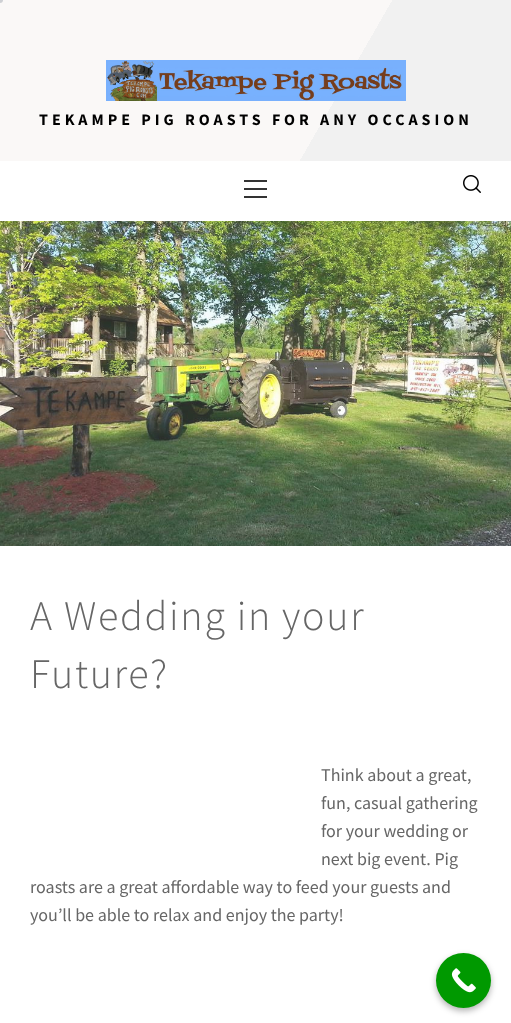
<svg xmlns="http://www.w3.org/2000/svg" width="511" height="1023">
	<defs>
		<linearGradient id="g1" gradientUnits="userSpaceOnUse" x1="482" y1="211" x2="29" y2="-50"><stop offset="0.35" stop-color="#F1F1F1" /><stop offset="0.35" stop-color="#FAF8F7" /></linearGradient>
	</defs>
	<rect width="100%" height="100%" fill="#FFFFFF" />
	<rect x="0" y="0" width="511" height="161" fill="url(#g1)" />
	<circle cx="0" cy="0" r="3" fill="#CED0D4" />
	<image x="106" y="60" width="300" height="41" href="assets/img1.png" />
	<text x="39" y="125" font-family="Source Sans Pro" font-size="16" font-weight="700" letter-spacing="4" fill="#000000">TEKAMPE PIG ROASTS FOR ANY OCCASION</text>
	<rect x="244" y="188" width="23" height="2" fill="#333333" />
	<rect x="244" y="180" width="23" height="2" fill="#333333" />
	<rect x="244" y="196" width="23" height="2" fill="#333333" />
	<image x="463" y="175" width="18" height="18" href="assets/img2.png" />
	<image x="0" y="221" width="511" height="325" href="assets/img3.png" />
	<g font-family="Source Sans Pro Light" font-size="42" font-weight="300" letter-spacing="1.7" fill="#666666">
		<text x="30" y="630">A Wedding in your</text>
		<text x="30" y="688">Future?</text>
	</g>
	<g font-family="Source Sans Pro" font-size="18" fill="#666666">
		<text x="321" y="781">Think about a great,</text>
		<text x="321" y="809">fun, casual gathering</text>
		<text x="321" y="837">for your wedding or</text>
		<text x="321" y="865">next big event. Pig</text>
		<text x="30" y="893">roasts are a great affordable way to feed your guests and</text>
		<text x="30" y="921">you’ll be able to relax and enjoy the party!</text>
	</g>
	<rect x="436" y="956" width="55" height="55" rx="27.5" fill="#000000" fill-opacity="0.3" filter="blur(3px)" />
	<circle cx="463.5" cy="980.5" r="27.5" fill="#009900" />
	<image x="451" y="968" width="25" height="25" href="assets/img4.png" />
</svg>
